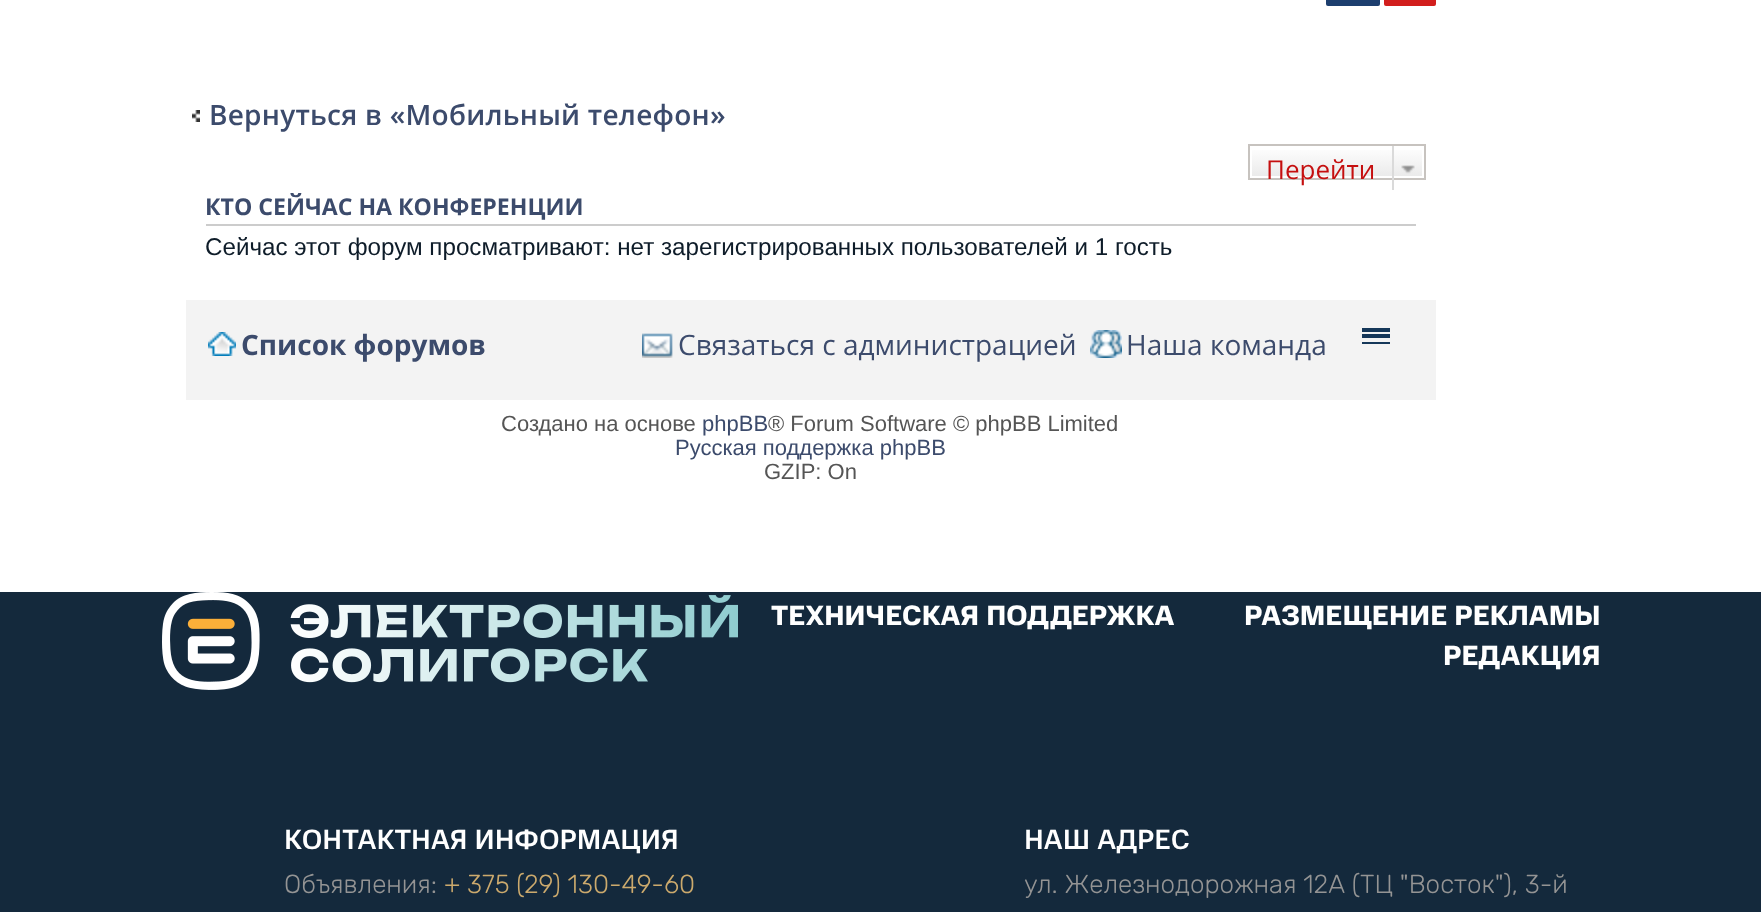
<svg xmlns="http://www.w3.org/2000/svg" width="1761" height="912">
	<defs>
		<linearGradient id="g1" gradientUnits="userSpaceOnUse" x1="1337" y1="146" x2="1337" y2="178"><stop offset="0" stop-color="#FFFFFF" /><stop offset="1" stop-color="#E9E9E9" /></linearGradient>
	</defs>
	<rect width="100%" height="100%" fill="#FFFFFF" />
	<rect x="1326" y="-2" width="54" height="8" rx="2" fill="#1D3E6E" />
	<rect x="1384" y="-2" width="52" height="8" rx="2" fill="#D21E1D" />
	<image x="192" y="110" width="8" height="12" href="assets/img1.png" />
	<text x="209" y="125" font-family="Open Sans" font-size="28" font-weight="600" letter-spacing="0.25" fill="#3C4B6C">Вернуться в «Мобильный телефон»</text>
	<rect x="1252" y="150" width="170" height="26" fill="url(#g1)" />
	<rect x="1249" y="145" width="176" height="34" fill="none" stroke="#C7C3BF" stroke-width="2" />
	<text x="1266" y="179" font-family="Open Sans" font-size="26" fill="#C50F0F">Перейти</text>
	<image x="1401" y="165" width="14" height="9" href="assets/img2.png" />
	<rect x="1392" y="146" width="2" height="44" fill="#DADADA" />
	<rect x="206" y="224" width="1210" height="2" fill="#CCCCCC" />
	<text x="205" y="215" font-family="Open Sans" font-size="23.1" font-weight="700" fill="#3C4B6C">КТО СЕЙЧАС НА КОНФЕРЕНЦИИ</text>
	<text x="205" y="255" font-family="Liberation Sans" font-size="24.2" fill="#0E1C29">Сейчас этот форум просматривают: нет зарегистрированных пользователей и 1 гость</text>
	<rect x="186" y="300" width="1250" height="100" fill="#F3F3F3" />
	<image x="208" y="332" width="28" height="24" href="assets/img3.png" />
	<text x="241" y="355" font-family="Open Sans" font-size="28" font-weight="700" fill="#3C4B6C">Список форумов</text>
	<image x="642" y="333" width="31" height="25" href="assets/img4.png" />
	<text x="678" y="355" font-family="Open Sans" font-size="28" fill="#3C4B6C">Связаться с администрацией</text>
	<image x="1090" y="330" width="32" height="28" href="assets/img5.png" />
	<text x="1126" y="355" font-family="Open Sans" font-size="28" fill="#3C4B6C">Наша команда</text>
	<rect x="1362" y="328" width="28" height="4" fill="#153759" />
	<rect x="1362" y="334" width="28" height="4" fill="#153759" />
	<rect x="1362" y="342" width="28" height="2" fill="#153759" />
	<text x="501" y="431" font-family="Liberation Sans" font-size="22" fill="#555555">Создано на основе</text>
	<text x="702" y="431" font-family="Liberation Sans" font-size="22" fill="#3C4B6C">phpBB</text>
	<text x="768" y="431" font-family="Liberation Sans" font-size="22" fill="#555555">® Forum Software © phpBB Limited</text>
	<text x="675" y="455" font-family="Liberation Sans" font-size="22" fill="#3C4B6C">Русская поддержка phpBB</text>
	<text x="764" y="479" font-family="Liberation Sans" font-size="22" fill="#555555">GZIP: On</text>
	<rect x="0" y="592" width="1761" height="320" fill="#14293C" />
	<image x="162" y="592" width="576" height="98" href="assets/img6.png" />
	<g font-family="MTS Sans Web" font-size="28" font-weight="700" fill="#FFFFFF">
		<text x="771" y="625">ТЕХНИЧЕСКАЯ ПОДДЕРЖКА</text>
		<text x="1244" y="625">РАЗМЕЩЕНИЕ РЕКЛАМЫ</text>
		<text x="1443" y="665">РЕДАКЦИЯ</text>
	</g>
	<text x="284" y="849" font-family="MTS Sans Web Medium" font-size="28" font-weight="500" fill="#FFFFFF">КОНТАКТНАЯ ИНФОРМАЦИЯ</text>
	<text x="284" y="893" font-family="Rubik" font-size="26" font-weight="300" fill="#949494">Объявления:</text>
	<text x="444" y="893" font-family="Rubik" font-size="26" font-weight="300" fill="#CCAA6D">+ 375 (29) 130-49-60</text>
	<text x="1024" y="849" font-family="MTS Sans Web Medium" font-size="28" font-weight="500" fill="#FFFFFF">НАШ АДРЕС</text>
	<text x="1024" y="893" font-family="Rubik" font-size="26" font-weight="300" fill="#949494">ул. Железнодорожная 12А (ТЦ "Восток"), 3-й</text>
</svg>
